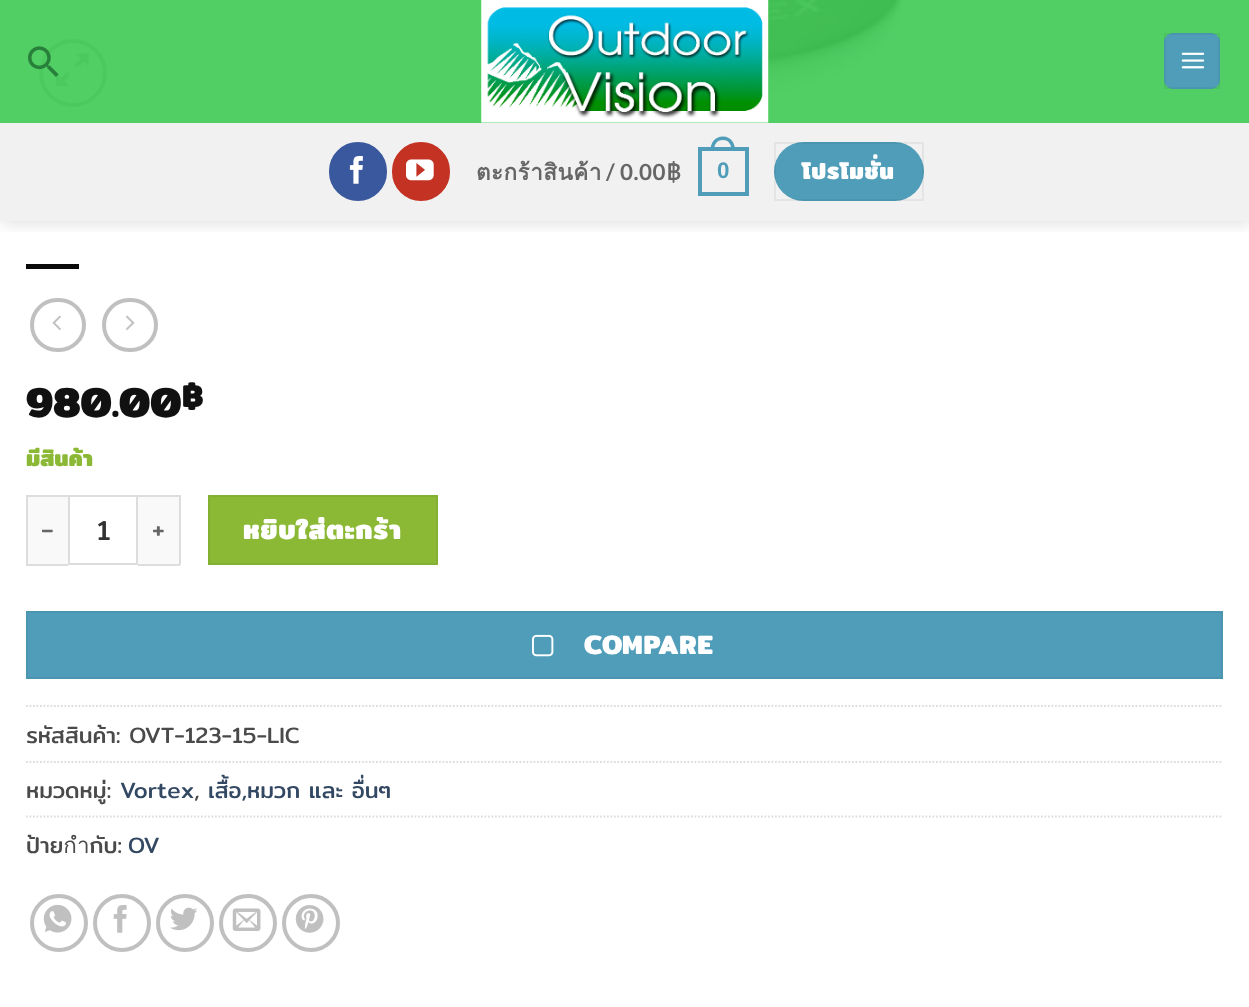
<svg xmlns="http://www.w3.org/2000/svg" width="1249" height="1007">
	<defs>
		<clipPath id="clip1"><rect x="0" y="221" width="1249" height="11" /></clipPath>
	</defs>
	<rect width="100%" height="100%" fill="#FFFFFF" />
	<circle cx="73" cy="73" r="32" fill="none" stroke="#C0C0C0" stroke-width="4" />
	<image x="56" y="53" width="33" height="34" href="assets/img6.png" />
	<image x="768" y="0" width="139" height="105" href="assets/img7.png" />
	<g clip-path="url(#clip1)">
		<rect x="2" y="2" width="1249" height="220" fill="#000000" fill-opacity="0.15" filter="blur(9px)" />
	</g>
	<rect x="0" y="0" width="1249" height="123" fill="#3EC953" fill-opacity="0.9" />
	<image x="28" y="46" width="31" height="31" href="assets/img1.png" />
	<image x="481" y="0" width="288" height="123" href="assets/img2.png" />
	<rect x="1164" y="33" width="56" height="56" rx="9" fill="#4F9DB9" />
	<rect x="1165" y="34" width="54" height="54" fill="none" stroke="#000000" stroke-opacity="0.05" stroke-width="2" />
	<image x="1181" y="52" width="24" height="17" href="assets/img3.png" />
	<rect x="0" y="123" width="1249" height="98" fill="#F1F1F1" />
	<rect x="330" y="143" width="56" height="57" rx="28" fill="#3A589D" stroke="#3A589D" stroke-width="2" />
	<image x="349" y="156" width="14" height="28" href="assets/img4.png" />
	<rect x="393" y="143" width="56" height="57" rx="28" fill="#C33223" stroke="#C33223" stroke-width="2" />
	<image x="406" y="159" width="28" height="22" href="assets/img5.png" />
	<text x="476" y="180" font-family="Loma" font-size="22.4" font-weight="700" letter-spacing="0.5" fill="#666666">ตะกร้าสินค้า</text>
	<text x="606" y="180" font-family="Lato" font-size="22.4" font-weight="700" letter-spacing="0.5" fill="#666666">/ 0.00</text>
	<text x="666" y="180" font-family="'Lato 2'" font-size="22.4" font-weight="700" letter-spacing="0.5" fill="#666666">฿</text>
	<rect x="700" y="149" width="47" height="45" fill="none" stroke="#4F9DB9" stroke-width="4" />
	<path d="M723 136.5C731 136.5 735 143 735 150.5H710.5C710.5 143 714.5 136.5 723 136.5ZM723 140C729 140 731.5 145 731.5 150.5H714C714 145 716.5 140 723 140Z" fill="#4F9DB9" fill-rule="evenodd" />
	<text x="717" y="178" font-family="Liberation Sans" font-size="22.4" font-weight="700" letter-spacing="0.5" fill="#4F9DB9">0</text>
	<rect x="774" y="142" width="150" height="59" rx="29.5" fill="#4F9DB9" />
	<rect x="775" y="143" width="148" height="57" fill="none" stroke="#000000" stroke-opacity="0.05" stroke-width="2" />
	<text x="802" y="179" font-family="Mitr" font-size="23" font-weight="700" letter-spacing="0.75" fill="#FFFFFF">โปรโมชั่น</text>
	<rect x="26" y="264" width="53" height="5" fill="#0A0A0A" />
	<rect x="32" y="300" width="52" height="50" rx="25" fill="none" stroke="#C0C0C0" stroke-width="4" />
	<image x="52" y="315" width="9" height="15" href="assets/img8.png" />
	<rect x="104" y="300" width="52" height="50" rx="25" fill="none" stroke="#C0C0C0" stroke-width="4" />
	<image x="126" y="315" width="9" height="15" href="assets/img9.png" />
	<text x="26" y="417" font-family="Mitr" font-size="42" font-weight="700" fill="#111111">980.00</text>
	<text x="182" y="407" font-family="Mitr" font-size="32" font-weight="700" fill="#111111">฿</text>
	<text x="26" y="466" font-family="Mitr" font-size="22.4" font-weight="700" fill="#8BB935">มีสินค้า</text>
	<rect x="28" y="497" width="40" height="67" fill="#F9F9F9" />
	<rect x="26" y="495" width="42" height="2" fill="#DDDDDD" />
	<rect x="26" y="564" width="42" height="2" fill="#DDDDDD" />
	<rect x="26" y="495" width="2" height="70" fill="#DDDDDD" />
	<text x="41" y="539" font-family="Mitr" font-size="27" letter-spacing="0.75" fill="#666666">-</text>
	<rect x="69" y="496" width="68" height="68" fill="none" stroke="#DDDDDD" stroke-width="2" />
	<text x="97" y="540" font-family="Mitr" font-size="28" fill="#333333">1</text>
	<rect x="138" y="497" width="41" height="67" fill="#F9F9F9" />
	<rect x="138" y="495" width="42" height="2" fill="#DDDDDD" />
	<rect x="179" y="495" width="2" height="70" fill="#DDDDDD" />
	<rect x="138" y="564" width="42" height="2" fill="#DDDDDD" />
	<text x="152" y="539" font-family="Mitr" font-size="27" letter-spacing="0.75" fill="#666666">+</text>
	<rect x="209" y="496" width="228" height="68" fill="#8BB935" stroke="#84B032" stroke-width="2" />
	<text x="243" y="539" font-family="Mitr" font-size="27" font-weight="700" letter-spacing="0.75" fill="#FFFFFF">หยิบใส่ตะกร้า</text>
	<rect x="27" y="612" width="1195" height="66" fill="#4F9DB9" stroke="#4B95B0" stroke-width="2" />
	<image x="532" y="634" width="22" height="23" href="assets/img10.png" />
	<text x="584" y="654" font-family="Mitr" font-size="27" font-weight="700" letter-spacing="0.75" fill="#FFFFFF">COMPARE</text>
	<path d="M26 706H1223" fill="none" stroke="#DDDDDD" stroke-width="1.8" stroke-dasharray="1.75 1.75" />
	<text x="26" y="743" font-family="Mitr" font-size="22.4" fill="#4A4A4A">รหัสสินค้า: OVT-123-15-LIC</text>
	<path d="M26 762H1223" fill="none" stroke="#DDDDDD" stroke-width="1.8" stroke-dasharray="1.75 1.75" />
	<text x="26" y="798" font-family="Mitr" font-size="22.4" fill="#4A4A4A">หมวดหมู่:</text>
	<text x="120" y="798" font-family="Mitr" font-size="22.4" fill="#334862">Vortex</text>
	<text x="194" y="798" font-family="Mitr" font-size="22.4" fill="#4A4A4A">,</text>
	<text x="208" y="798" font-family="Mitr" font-size="22.4" fill="#334862">เสื้อ,หมวก และ อื่นๆ</text>
	<path d="M26 816.5H1223" fill="none" stroke="#DDDDDD" stroke-width="1.8" stroke-dasharray="1.75 1.75" />
	<text x="26" y="853" font-family="Mitr" font-size="22.4" fill="#4A4A4A">ป้ายกำกับ:</text>
	<text x="128" y="853" font-family="Mitr" font-size="22.4" fill="#334862">OV</text>
	<circle cx="59" cy="923" r="27" fill="none" stroke="#C0C0C0" stroke-width="4" />
	<image x="43" y="904" width="29" height="29" href="assets/img11.png" />
	<circle cx="122" cy="923" r="27" fill="none" stroke="#C0C0C0" stroke-width="4" />
	<image x="113" y="905" width="14" height="28" href="assets/img12.png" />
	<circle cx="185" cy="923" r="27" fill="none" stroke="#C0C0C0" stroke-width="4" />
	<image x="170" y="907" width="28" height="24" href="assets/img13.png" />
	<circle cx="248" cy="923" r="27" fill="none" stroke="#C0C0C0" stroke-width="4" />
	<image x="232" y="908" width="29" height="23" href="assets/img14.png" />
	<circle cx="311" cy="923" r="27" fill="none" stroke="#C0C0C0" stroke-width="4" />
	<image x="295" y="905" width="29" height="28" href="assets/img15.png" />
</svg>
